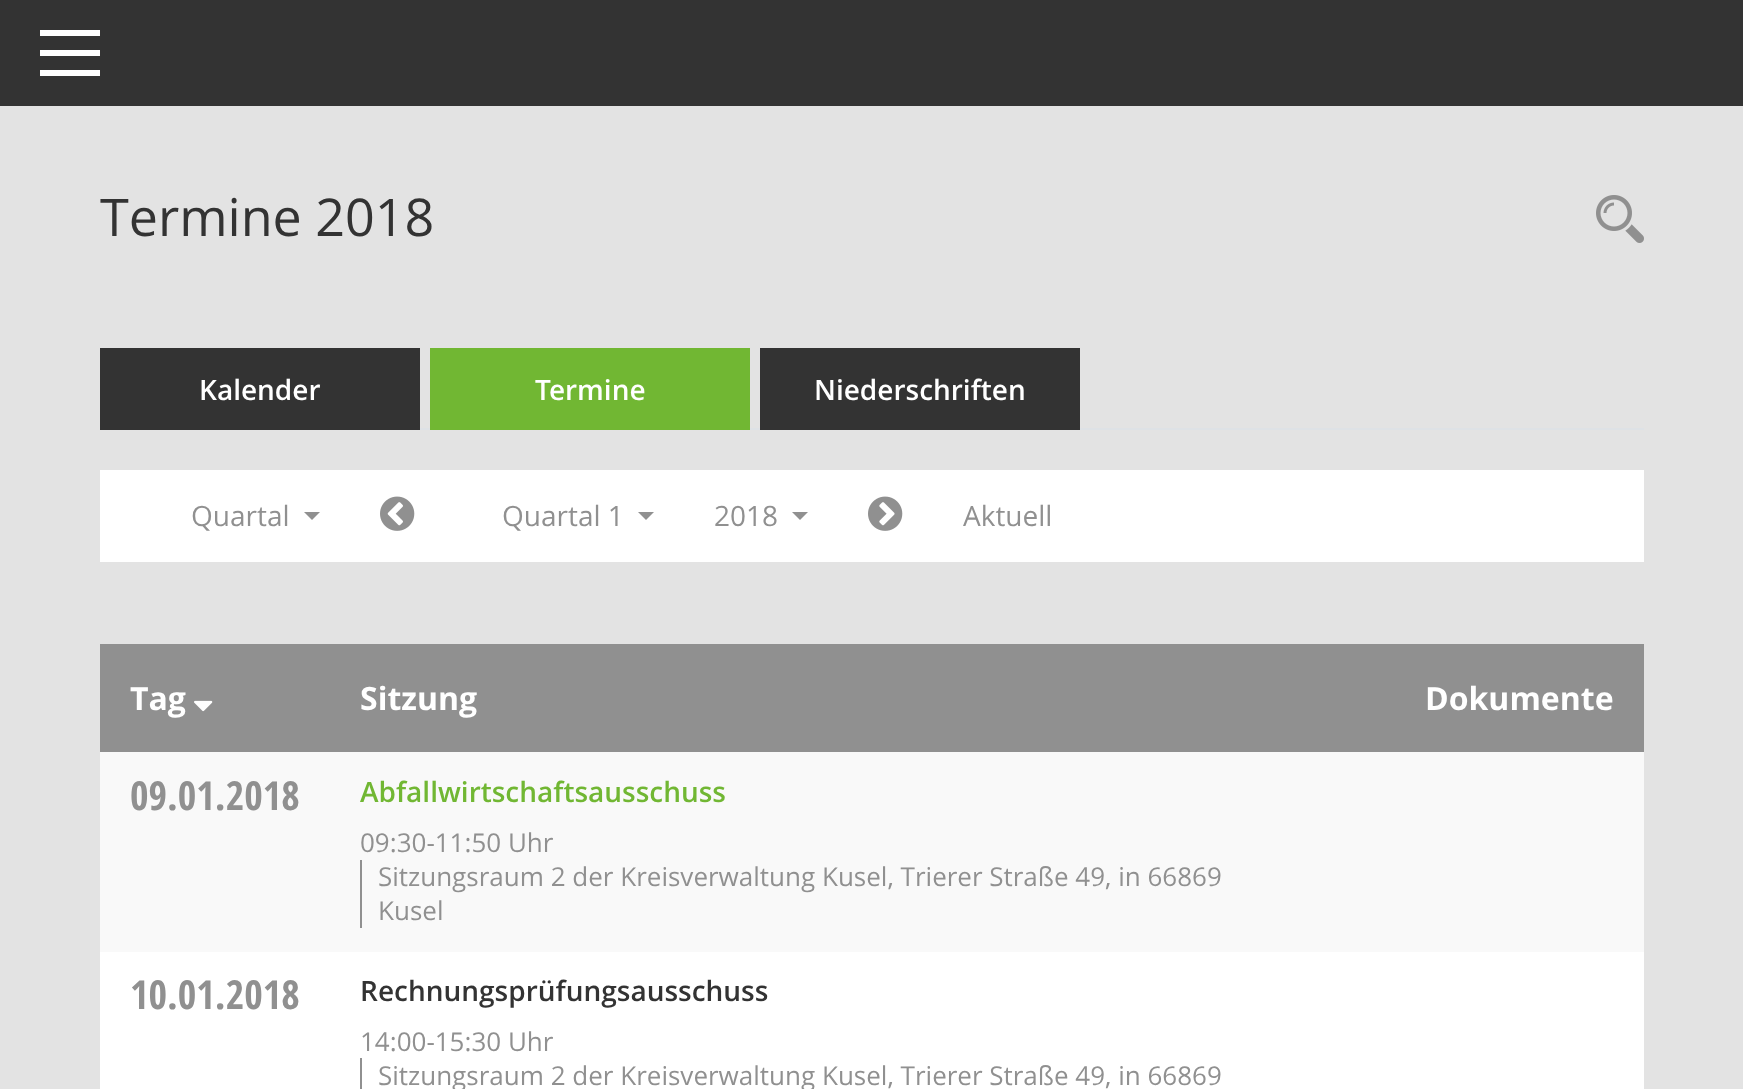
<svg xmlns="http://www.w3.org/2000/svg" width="1743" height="1089">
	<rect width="100%" height="100%" fill="#E3E3E3" />
	<rect x="0" y="0" width="1743" height="106" fill="#333333" />
	<rect x="40" y="30" width="60" height="6" fill="#FFFFFF" />
	<rect x="40" y="50" width="60" height="6" fill="#FFFFFF" />
	<rect x="40" y="70" width="60" height="6" fill="#FFFFFF" />
	<text x="100" y="236" font-family="Open Sans" font-size="52" fill="#333333">Termine 2018</text>
	<image x="1596" y="195" width="48" height="48" href="assets/img1.png" />
	<rect x="420" y="428" width="1224" height="2" fill="#DEE2E6" />
	<rect x="100" y="348" width="320" height="82" fill="#333333" />
	<text x="199" y="400" font-family="Open Sans" font-size="28" font-weight="600" fill="#FFFFFF">Kalender</text>
	<rect x="430" y="348" width="320" height="82" fill="#71B733" />
	<text x="535" y="400" font-family="Open Sans" font-size="28" font-weight="600" fill="#FFFFFF">Termine</text>
	<rect x="760" y="348" width="320" height="82" fill="#333333" />
	<text x="814" y="400" font-family="Open Sans" font-size="28" font-weight="600" fill="#FFFFFF">Niederschriften</text>
	<rect x="100" y="470" width="1544" height="92" fill="#FFFFFF" />
	<text x="191" y="526" font-family="Open Sans" font-size="28" fill="#909090">Quartal</text>
	<path d="M304 512H320L312 520Z" fill="#909090" />
	<image x="380" y="496" width="35" height="35" href="assets/img2.png" />
	<text x="502" y="526" font-family="Open Sans" font-size="28" fill="#909090">Quartal 1</text>
	<path d="M638 512H654L646 520Z" fill="#909090" />
	<text x="714" y="526" font-family="Open Sans" font-size="28" fill="#909090">2018</text>
	<path d="M792 512H808L800 520Z" fill="#909090" />
	<image x="868" y="496" width="35" height="35" href="assets/img3.png" />
	<text x="963" y="526" font-family="Open Sans" font-size="28" fill="#909090">Aktuell</text>
	<rect x="100" y="952" width="1544" height="137" fill="#FFFFFF" />
	<rect x="100" y="644" width="1544" height="108" fill="#909090" />
	<text x="130" y="710" font-family="Open Sans" font-size="32" font-weight="700" fill="#FFFFFF">Tag</text>
	<image x="194" y="700" width="19" height="12" href="assets/img4.png" />
	<g font-family="Open Sans" font-size="32" font-weight="700" fill="#FFFFFF">
		<text x="360" y="710">Sitzung</text>
		<text x="1425" y="710">Dokumente</text>
	</g>
	<rect x="100" y="752" width="1544" height="200" fill="#F9F9F9" />
	<text x="130" y="810" font-family="Open Sans Condensed" font-size="40" font-weight="700" fill="#909090">09.01.2018</text>
	<text x="360" y="802" font-family="Open Sans" font-size="28" font-weight="600" fill="#71B733">Abfallwirtschaftsausschuss</text>
	<text x="360" y="852" font-family="Open Sans" font-size="26" fill="#909090">09:30-11:50 Uhr</text>
	<rect x="360" y="860" width="2" height="68" fill="#909090" />
	<g font-family="Open Sans" font-size="26" fill="#909090">
		<text x="378" y="886">Sitzungsraum 2 der Kreisverwaltung Kusel, Trierer Straße 49, in 66869</text>
		<text x="378" y="920">Kusel</text>
	</g>
	<text x="130" y="1009" font-family="Open Sans Condensed" font-size="40" font-weight="700" fill="#909090">10.01.2018</text>
	<text x="360" y="1001" font-family="Open Sans" font-size="28" font-weight="600" fill="#333333">Rechnungsprüfungsausschuss</text>
	<text x="360" y="1051" font-family="Open Sans" font-size="26" fill="#909090">14:00-15:30 Uhr</text>
	<rect x="360" y="1058" width="2" height="31" fill="#909090" />
	<text x="378" y="1085" font-family="Open Sans" font-size="26" fill="#909090">Sitzungsraum 2 der Kreisverwaltung Kusel, Trierer Straße 49, in 66869</text>
</svg>
